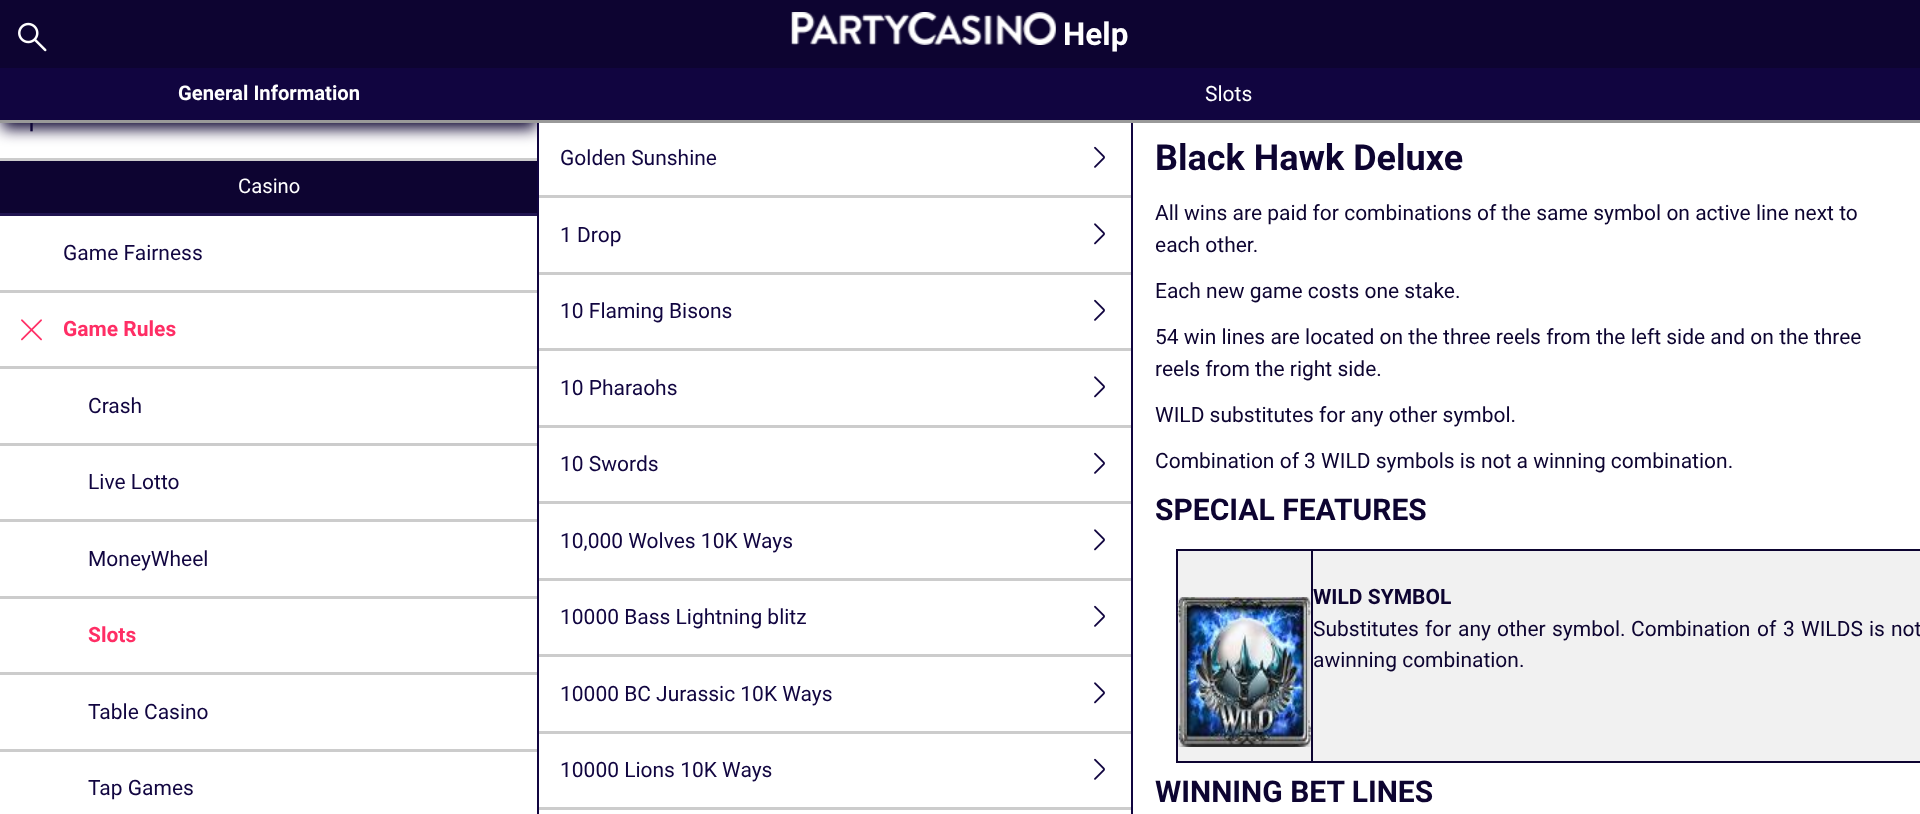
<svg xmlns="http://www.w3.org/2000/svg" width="1920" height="814">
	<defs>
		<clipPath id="clip1"><rect x="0" y="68" width="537" height="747" /></clipPath>
	</defs>
	<rect width="100%" height="100%" fill="#FFFFFF" />
	<image x="30" y="123" width="3" height="9" href="assets/img3.png" />
	<rect x="537" y="123" width="2" height="691" fill="#110540" />
	<g clip-path="url(#clip1)">
		<rect x="2" y="77" width="534" height="52" fill="#0D0431" filter="blur(7.5px)" />
	</g>
	<rect x="0" y="0" width="1920" height="68" fill="#0D0431" />
	<image x="18" y="22" width="29" height="30" href="assets/img1.png" />
	<image x="791" y="12" width="265" height="33" href="assets/img2.png" />
	<text x="1063" y="45" font-family="Roboto" font-size="31.5" font-weight="700" fill="#FFFFFF">Help</text>
	<rect x="0" y="68" width="1920" height="52" fill="#110540" />
	<rect x="1131" y="122" width="2" height="692" fill="#110540" />
	<rect x="0" y="120" width="1920" height="3" fill="#999999" />
	<text x="178" y="100" font-family="Roboto" font-size="20.25" font-weight="700" fill="#FFFFFF">General Information</text>
	<rect x="0" y="158" width="537" height="3" fill="#CCCCCC" />
	<rect x="0" y="161" width="537" height="52" fill="#0D0431" />
	<rect x="0" y="213" width="537" height="3" fill="#211551" />
	<text x="238" y="193" font-family="Roboto" font-size="20.25" fill="#FFFFFF">Casino</text>
	<rect x="0" y="290" width="537" height="3" fill="#CCCCCC" />
	<text x="63" y="260" font-family="Roboto" font-size="21" fill="#110540">Game Fairness</text>
	<image x="21" y="319" width="21" height="22" href="assets/img4.png" />
	<text x="63" y="336" font-family="Roboto" font-size="21" font-weight="700" fill="#FF2E65">Game Rules</text>
	<rect x="0" y="366" width="537" height="3" fill="#CCCCCC" />
	<rect x="0" y="443" width="537" height="3" fill="#CCCCCC" />
	<text x="88" y="413" font-family="Roboto" font-size="21" fill="#110540">Crash</text>
	<rect x="0" y="519" width="537" height="3" fill="#CCCCCC" />
	<text x="88" y="489" font-family="Roboto" font-size="21" fill="#110540">Live Lotto</text>
	<rect x="0" y="596" width="537" height="3" fill="#CCCCCC" />
	<text x="88" y="566" font-family="Roboto" font-size="21" fill="#110540">MoneyWheel</text>
	<rect x="0" y="672" width="537" height="3" fill="#CCCCCC" />
	<text x="88" y="642" font-family="Roboto" font-size="21" font-weight="700" fill="#FF2E65">Slots</text>
	<rect x="0" y="749" width="537" height="3" fill="#CCCCCC" />
	<g font-family="Roboto" font-size="21" fill="#110540">
		<text x="88" y="719">Table Casino</text>
		<text x="88" y="795">Tap Games</text>
	</g>
	<text x="1205" y="101" font-family="Roboto" font-size="21" fill="#FFFFFF">Slots</text>
	<rect x="539" y="195" width="592" height="3" fill="#CCCCCC" />
	<text x="560" y="165" font-family="Roboto" font-size="21" fill="#110540">Golden Sunshine</text>
	<image x="1094" y="146" width="11" height="22" href="assets/img5.png" />
	<rect x="539" y="272" width="592" height="3" fill="#CCCCCC" />
	<text x="560" y="242" font-family="Roboto" font-size="21" fill="#110540">1 Drop</text>
	<image x="1094" y="223" width="11" height="22" href="assets/img6.png" />
	<rect x="539" y="348" width="592" height="3" fill="#CCCCCC" />
	<text x="560" y="318" font-family="Roboto" font-size="21" fill="#110540">10 Flaming Bisons</text>
	<image x="1094" y="299" width="11" height="22" href="assets/img5.png" />
	<rect x="539" y="425" width="592" height="3" fill="#CCCCCC" />
	<text x="560" y="395" font-family="Roboto" font-size="21" fill="#110540">10 Pharaohs</text>
	<image x="1094" y="376" width="11" height="22" href="assets/img6.png" />
	<rect x="539" y="501" width="592" height="3" fill="#CCCCCC" />
	<text x="560" y="471" font-family="Roboto" font-size="21" fill="#110540">10 Swords</text>
	<image x="1094" y="452" width="11" height="22" href="assets/img5.png" />
	<rect x="539" y="578" width="592" height="3" fill="#CCCCCC" />
	<text x="560" y="548" font-family="Roboto" font-size="21" fill="#110540">10,000 Wolves 10K Ways</text>
	<image x="1094" y="529" width="11" height="22" href="assets/img6.png" />
	<rect x="539" y="654" width="592" height="3" fill="#CCCCCC" />
	<text x="560" y="624" font-family="Roboto" font-size="21" fill="#110540">10000 Bass Lightning blitz</text>
	<image x="1094" y="605" width="11" height="22" href="assets/img5.png" />
	<rect x="539" y="731" width="592" height="3" fill="#CCCCCC" />
	<text x="560" y="701" font-family="Roboto" font-size="21" fill="#110540">10000 BC Jurassic 10K Ways</text>
	<image x="1094" y="682" width="11" height="22" href="assets/img6.png" />
	<rect x="539" y="807" width="592" height="3" fill="#CCCCCC" />
	<text x="560" y="777" font-family="Roboto" font-size="21" fill="#110540">10000 Lions 10K Ways</text>
	<image x="1094" y="758" width="11" height="22" href="assets/img5.png" />
	<text x="1155" y="170" font-family="Roboto" font-size="36" font-weight="700" fill="#0D0431">Black Hawk Deluxe</text>
	<g font-family="Roboto" font-size="21" fill="#0D0431">
		<text x="1155" y="220">All wins are paid for combinations of the same symbol on active line next to</text>
		<text x="1155" y="252">each other.</text>
		<text x="1155" y="298">Each new game costs one stake.</text>
		<text x="1155" y="344">54 win lines are located on the three reels from the left side and on the three</text>
		<text x="1155" y="376">reels from the right side.</text>
		<text x="1155" y="422">WILD substitutes for any other symbol.</text>
		<text x="1155" y="468">Combination of 3 WILD symbols is not a winning combination.</text>
	</g>
	<text x="1155" y="520" font-family="Roboto" font-size="30" font-weight="700" fill="#0D0431">SPECIAL FEATURES</text>
	<rect x="1176" y="549" width="744" height="2" fill="#0D0431" />
	<rect x="1176" y="761" width="744" height="2" fill="#0D0431" />
	<rect x="1176" y="549" width="2" height="213" fill="#0D0431" />
	<rect x="1178" y="551" width="742" height="210" fill="#F1F1F1" />
	<image x="1177" y="597" width="134" height="150" href="assets/img7.png" />
	<rect x="1311" y="549" width="2" height="213" fill="#0D0431" />
	<text x="1313" y="604" font-family="Roboto" font-size="21" font-weight="700" fill="#0D0431">WILD SYMBOL</text>
	<g font-family="Roboto" font-size="21" fill="#0D0431">
		<text x="1313" y="636">Substitutes</text>
		<text x="1425" y="636">for</text>
		<text x="1458" y="636">any</text>
		<text x="1497" y="636">other</text>
		<text x="1552" y="636">symbol.</text>
		<text x="1631" y="636">Combination</text>
		<text x="1757" y="636">of</text>
		<text x="1783" y="636">3</text>
		<text x="1801" y="636">WILDS</text>
		<text x="1869" y="636">is</text>
		<text x="1891" y="636">not</text>
		<text x="1313" y="667">awinning combination.</text>
	</g>
	<text x="1155" y="802" font-family="Roboto" font-size="30" font-weight="700" fill="#0D0431">WINNING BET LINES</text>
</svg>
